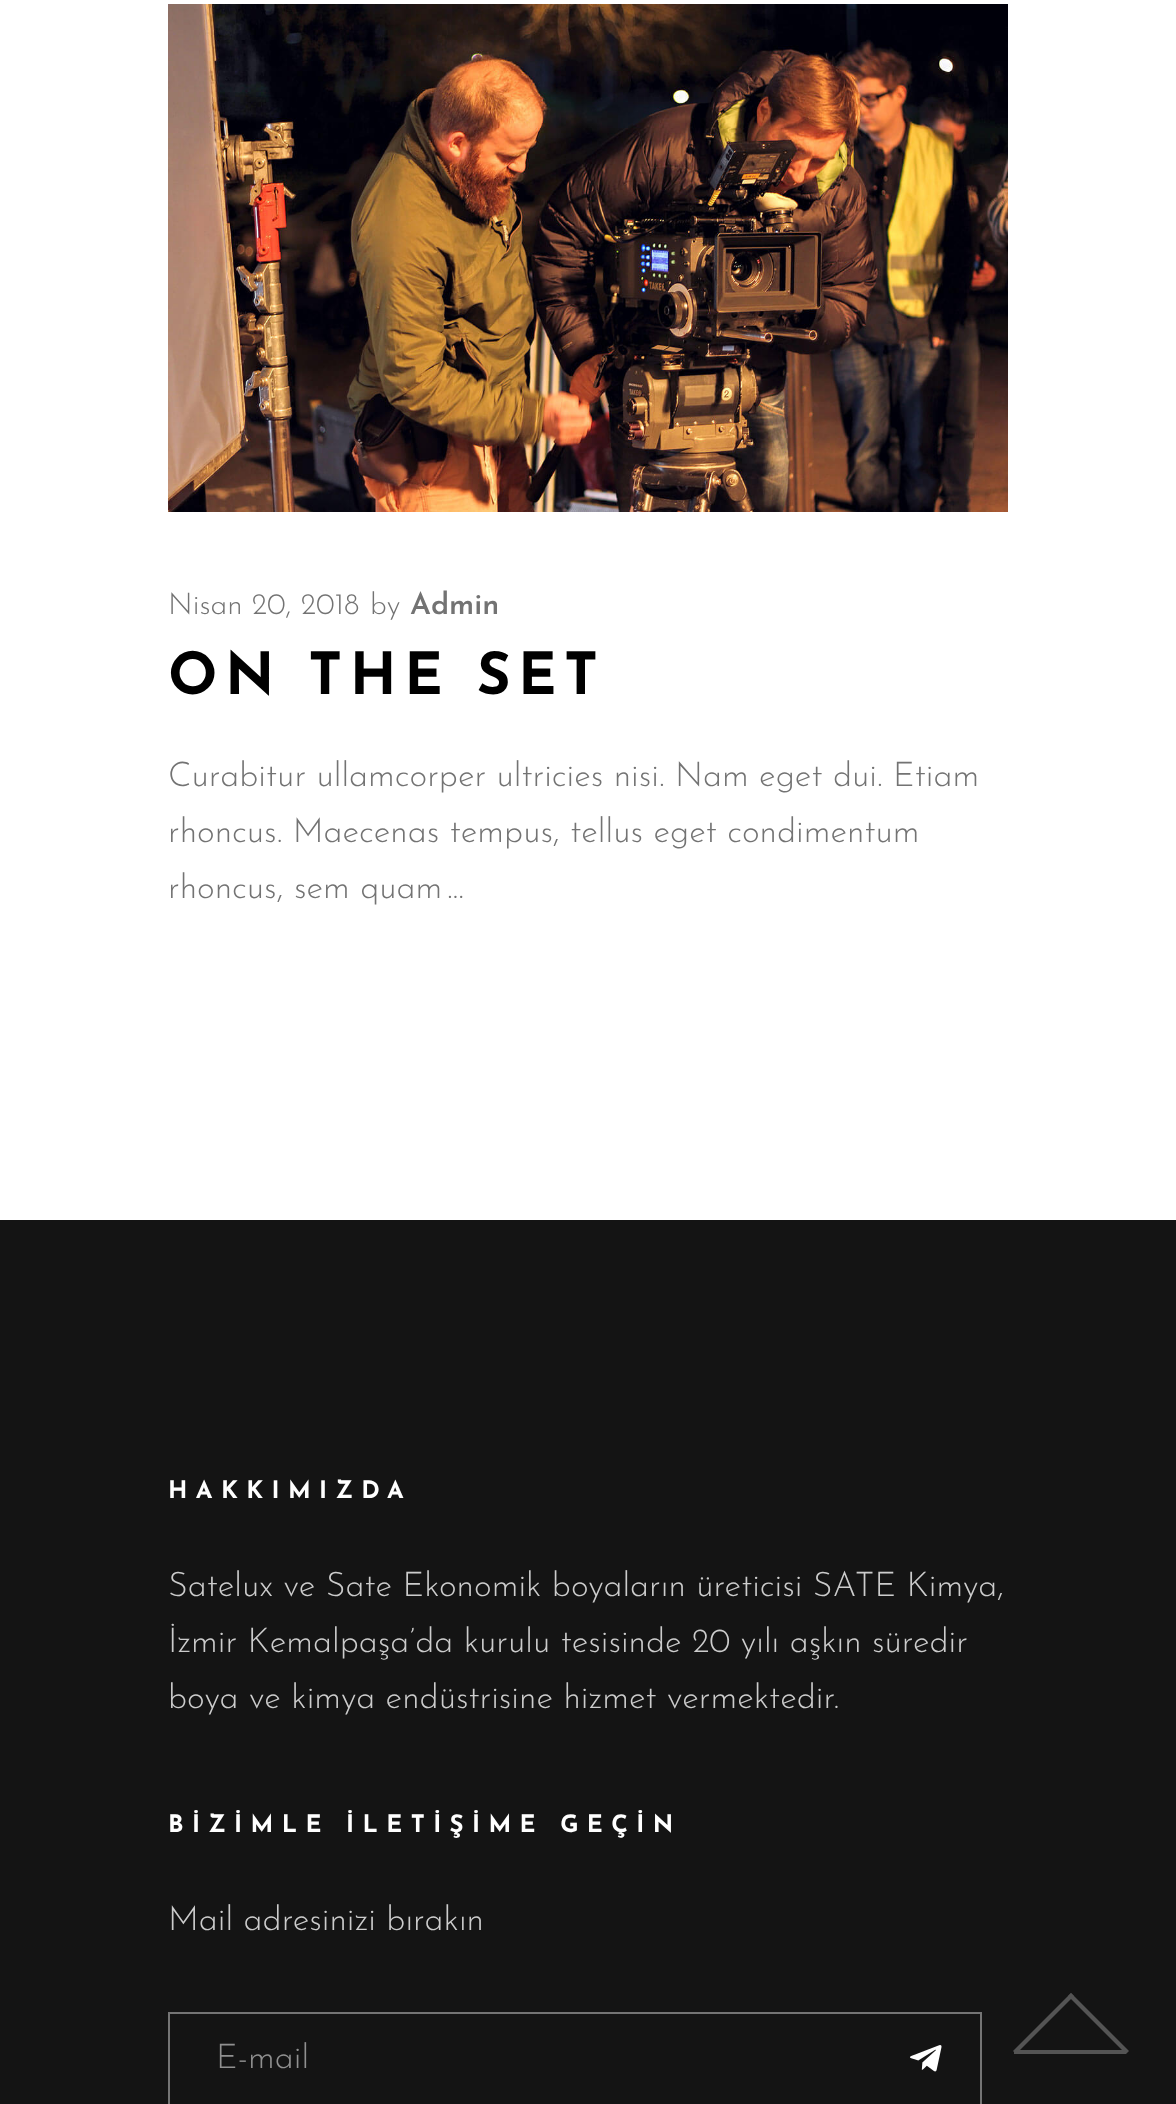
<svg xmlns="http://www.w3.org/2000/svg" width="1176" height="2104">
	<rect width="100%" height="100%" fill="#FFFFFF" />
	<image x="168" y="4" width="840" height="508" href="assets/img1.png" />
	<g font-family="Josefin Sans" font-size="30" font-weight="300" fill="#737373">
		<text x="168" y="614">Nisan 20, 2018</text>
		<text x="370" y="614">by</text>
	</g>
	<text x="410" y="614" font-family="Josefin Sans" font-size="30" font-weight="600" fill="#737373">Admin</text>
	<text x="168" y="694" font-family="Josefin Sans" font-size="58" font-weight="700" letter-spacing="7.5" fill="#000000">ON THE SET</text>
	<g font-family="Josefin Sans" font-size="34" font-weight="300" fill="#737373">
		<text x="168" y="786">Curabitur ullamcorper ultricies nisi. Nam eget dui. Etiam</text>
		<text x="168" y="842">rhoncus. Maecenas tempus, tellus eget condimentum</text>
		<text x="168" y="898">rhoncus, sem quam</text>
		<text x="447" y="898">...</text>
	</g>
	<rect x="0" y="1220" width="1176" height="884" fill="#141414" />
	<text x="168" y="1498" font-family="Josefin Sans" font-size="24" font-weight="700" letter-spacing="8.4" fill="#FFFFFF">HAKKIMIZDA</text>
	<g font-family="Josefin Sans" font-size="34" font-weight="300" fill="#CCCCCC">
		<text x="168" y="1596">Satelux ve Sate Ekonomik boyaların üreticisi SATE Kimya,</text>
		<text x="168" y="1652">İzmir Kemalpaşa’da kurulu tesisinde 20 yılı aşkın süredir</text>
		<text x="168" y="1708">boya ve kimya endüstrisine hizmet vermektedir.</text>
	</g>
	<text x="168" y="1832" font-family="Josefin Sans" font-size="24" font-weight="700" letter-spacing="8.4" fill="#FFFFFF">BİZİMLE İLETİŞİME GEÇİN</text>
	<text x="168" y="1930" font-family="Josefin Sans" font-size="34" font-weight="300" fill="#CCCCCC">Mail adresinizi bırakın</text>
	<rect x="169" y="2013" width="812" height="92" fill="none" stroke="#747474" stroke-width="2" />
	<text x="216" y="2068" font-family="Josefin Sans" font-size="34" font-weight="300" fill="#909090">E-mail</text>
	<image x="910" y="2045" width="32" height="27" href="assets/img2.png" />
	<rect x="1014" y="2050" width="112" height="4" fill="#545454" />
	<path d="M1071 1993L1129 2051L1126 2054L1068 1996Z" fill="#545454" />
	<path d="M1071 1993L1074 1996L1016 2054L1013 2051Z" fill="#545454" />
</svg>
